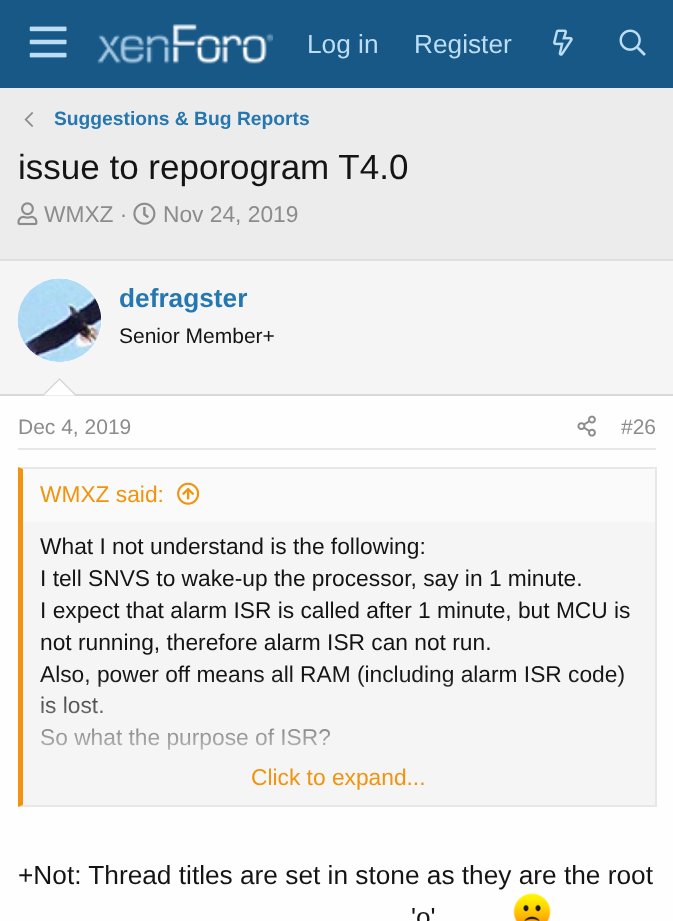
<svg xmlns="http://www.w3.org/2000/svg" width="673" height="921">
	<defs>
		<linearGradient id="g1" gradientUnits="userSpaceOnUse" x1="339" y1="674" x2="339" y2="805"><stop offset="0" stop-color="#F5F5F5" stop-opacity="0" /><stop offset="0.8" stop-color="#F5F5F5" /></linearGradient>
	</defs>
	<rect width="100%" height="100%" fill="#ECECEC" />
	<rect x="0" y="0" width="673" height="88" fill="#185886" />
	<image x="29" y="26" width="38" height="32" href="assets/img1.png" />
	<image x="97" y="24" width="176" height="40" href="assets/img2.png" />
	<g font-family="Liberation Sans" font-size="26.25" fill="#BCDEF5">
		<text x="307" y="53">Log in</text>
		<text x="414" y="53">Register</text>
	</g>
	<image x="553" y="29" width="20" height="27" href="assets/img3.png" />
	<image x="619" y="29" width="27" height="27" href="assets/img4.png" />
	<image x="24" y="112" width="10" height="15" href="assets/img5.png" />
	<text x="54" y="125" font-family="Liberation Sans" font-size="19.25" font-weight="700" fill="#2577B1">Suggestions &amp; Bug Reports</text>
	<text x="18" y="179" font-family="Liberation Sans" font-size="35" fill="#141414">issue to reporogram T4.0</text>
	<image x="17" y="202" width="21" height="24" href="assets/img6.png" />
	<text x="44" y="222" font-family="Liberation Sans" font-size="22.75" fill="#8C8C8C">WMXZ ·</text>
	<image x="133" y="202" width="23" height="23" href="assets/img7.png" />
	<text x="163" y="222" font-family="Liberation Sans" font-size="22.75" fill="#8C8C8C">Nov 24, 2019</text>
	<rect x="0" y="396" width="673" height="525" fill="#FEFEFE" />
	<rect x="0" y="259" width="673" height="2" fill="#DFDFDF" />
	<rect x="0" y="261" width="673" height="133" fill="#F5F5F5" />
	<rect x="0" y="394" width="673" height="2" fill="#D8D8D8" />
	<circle cx="60" cy="320" r="42" fill="#FEFEFE" />
	<image x="17" y="278" width="85" height="84" href="assets/img8.png" />
	<text x="119" y="307" font-family="Liberation Sans" font-size="26.25" font-weight="700" fill="#2577B1">defragster</text>
	<text x="119" y="343" font-family="Liberation Sans" font-size="21" fill="#141414">Senior Member+</text>
	<path d="M77 395.5H42L59.5 378Z" fill="#D8D8D8" />
	<path d="M75 395.5H44L59.5 380Z" fill="#FEFEFE" />
	<rect x="18" y="448" width="638" height="2" fill="#E7E7E7" />
	<text x="18" y="434" font-family="Liberation Sans" font-size="21" fill="#8C8C8C">Dec 4, 2019</text>
	<image x="577" y="415" width="19" height="22" href="assets/img9.png" />
	<text x="621" y="434" font-family="Liberation Sans" font-size="21" fill="#8C8C8C">#26</text>
	<rect x="23" y="522" width="632" height="256" fill="#F5F5F5" />
	<path d="M18 467H656L654 469H23Z" fill="#E7E7E7" />
	<rect x="655" y="467" width="2" height="340" fill="#E7E7E7" />
	<path d="M656 807H18L23 805H654Z" fill="#E7E7E7" />
	<path d="M18 807V467L23 469V805Z" fill="#F2930D" />
	<rect x="23" y="469" width="632" height="53" fill="#FAFAFA" />
	<text x="40" y="502" font-family="Liberation Sans" font-size="22.75" fill="#F2930D">WMXZ said:</text>
	<image x="177" y="482" width="23" height="23" href="assets/img10.png" />
	<g font-family="Liberation Sans" font-size="22.75" fill="#141414">
		<text x="40" y="554">What I not understand is the following:</text>
		<text x="40" y="586">I tell SNVS to wake-up the processor, say in 1 minute.</text>
		<text x="40" y="618">I expect that alarm ISR is called after 1 minute, but MCU is</text>
		<text x="40" y="650">not running, therefore alarm ISR can not run.</text>
		<text x="40" y="682">Also, power off means all RAM (including alarm ISR code)</text>
		<text x="40" y="713">is lost.</text>
		<text x="40" y="745">So what the purpose of ISR?</text>
	</g>
	<rect x="23" y="676" width="632" height="129" fill="url(#g1)" />
	<text x="251" y="785" font-family="Liberation Sans" font-size="22.75" fill="#F2930D">Click to expand...</text>
	<g font-family="Liberation Sans" font-size="26.25" fill="#141414">
		<text x="18" y="884">+Not: Thread titles are set in stone as they are the root</text>
		<text x="411" y="926">'o'</text>
	</g>
	<image x="513" y="893" width="38" height="28" href="assets/img11.png" />
</svg>
